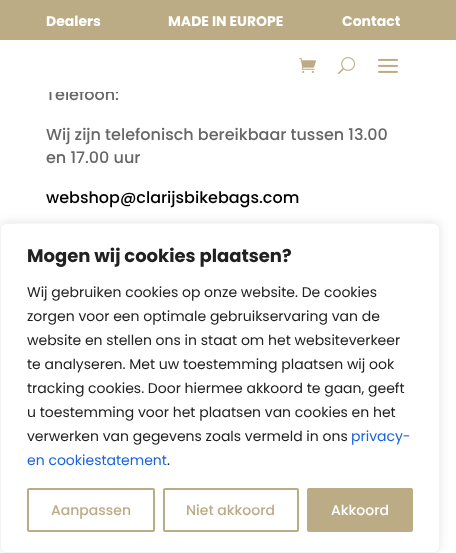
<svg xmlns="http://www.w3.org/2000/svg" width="456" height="553">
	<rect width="100%" height="100%" fill="#FFFFFF" />
	<rect x="0" y="0" width="456" height="40" fill="#BCAC85" />
	<g font-family="Poppins" font-size="14" font-weight="700" fill="#FFFFFF">
		<text x="46" y="26">Dealers</text>
		<text x="168" y="26">MADE IN EUROPE</text>
		<text x="342" y="26">Contact</text>
	</g>
	<text x="46" y="100" font-family="Poppins" font-size="16" font-weight="500" fill="#666666">Telefoon:</text>
	<rect x="46" y="87" width="72" height="5" fill="#FFFFFF" />
	<image x="299" y="58" width="17" height="15" href="assets/img1.png" />
	<image x="338" y="57" width="17" height="18" href="assets/img2.png" />
	<image x="378" y="58" width="20" height="15" href="assets/img3.png" />
	<g font-family="Poppins" font-size="16" font-weight="500" fill="#666666">
		<text x="46" y="140">Wij zijn telefonisch bereikbaar tussen 13.00</text>
		<text x="46" y="163">en 17.00 uur</text>
	</g>
	<text x="46" y="203" font-family="Poppins" font-size="16" font-weight="500" fill="#000000">webshop@clarijsbikebags.com</text>
	<rect x="0" y="222" width="440" height="330" rx="6" fill="#ACABAB" fill-opacity="0.3" filter="blur(5px)" />
	<rect x="0.5" y="223.5" width="439" height="329" rx="5.5" fill="#FFFFFF" stroke="#F4F4F4" />
	<text x="27" y="262" font-family="Poppins" font-size="18" font-weight="700" fill="#212121">Mogen wij cookies plaatsen?</text>
	<g font-family="Poppins" font-size="14" fill="#212121">
		<text x="27" y="297">Wij gebruiken cookies op onze website. De cookies</text>
		<text x="27" y="321">zorgen voor een optimale gebruikservaring van de</text>
		<text x="27" y="345">website en stellen ons in staat om het websiteverkeer</text>
		<text x="27" y="369">te analyseren. Met uw toestemming plaatsen wij ook</text>
		<text x="27" y="393">tracking cookies. Door hiermee akkoord te gaan, geeft</text>
		<text x="27" y="417">u toestemming voor het plaatsen van cookies en het</text>
		<text x="27" y="441">verwerken van gegevens zoals vermeld in ons</text>
	</g>
	<g font-family="Poppins" font-size="14" fill="#1863DC">
		<text x="351" y="441">privacy-</text>
		<text x="27" y="465">en cookiestatement</text>
	</g>
	<text x="167" y="465" font-family="Poppins" font-size="14" fill="#212121">.</text>
	<rect x="28" y="489" width="126" height="42" rx="1" fill="none" stroke="#BCAC85" stroke-width="2" />
	<text x="51" y="515" font-family="Poppins" font-size="14" font-weight="500" fill="#BCAC85">Aanpassen</text>
	<rect x="164" y="489" width="134" height="42" rx="1" fill="none" stroke="#BCAC85" stroke-width="2" />
	<text x="186" y="515" font-family="Poppins" font-size="14" font-weight="500" fill="#BCAC85">Niet akkoord</text>
	<rect x="308" y="489" width="104" height="42" rx="1" fill="#BCAC85" stroke="#BCAC85" stroke-width="2" />
	<text x="331" y="515" font-family="Poppins" font-size="14" font-weight="500" fill="#FFFFFF">Akkoord</text>
</svg>
